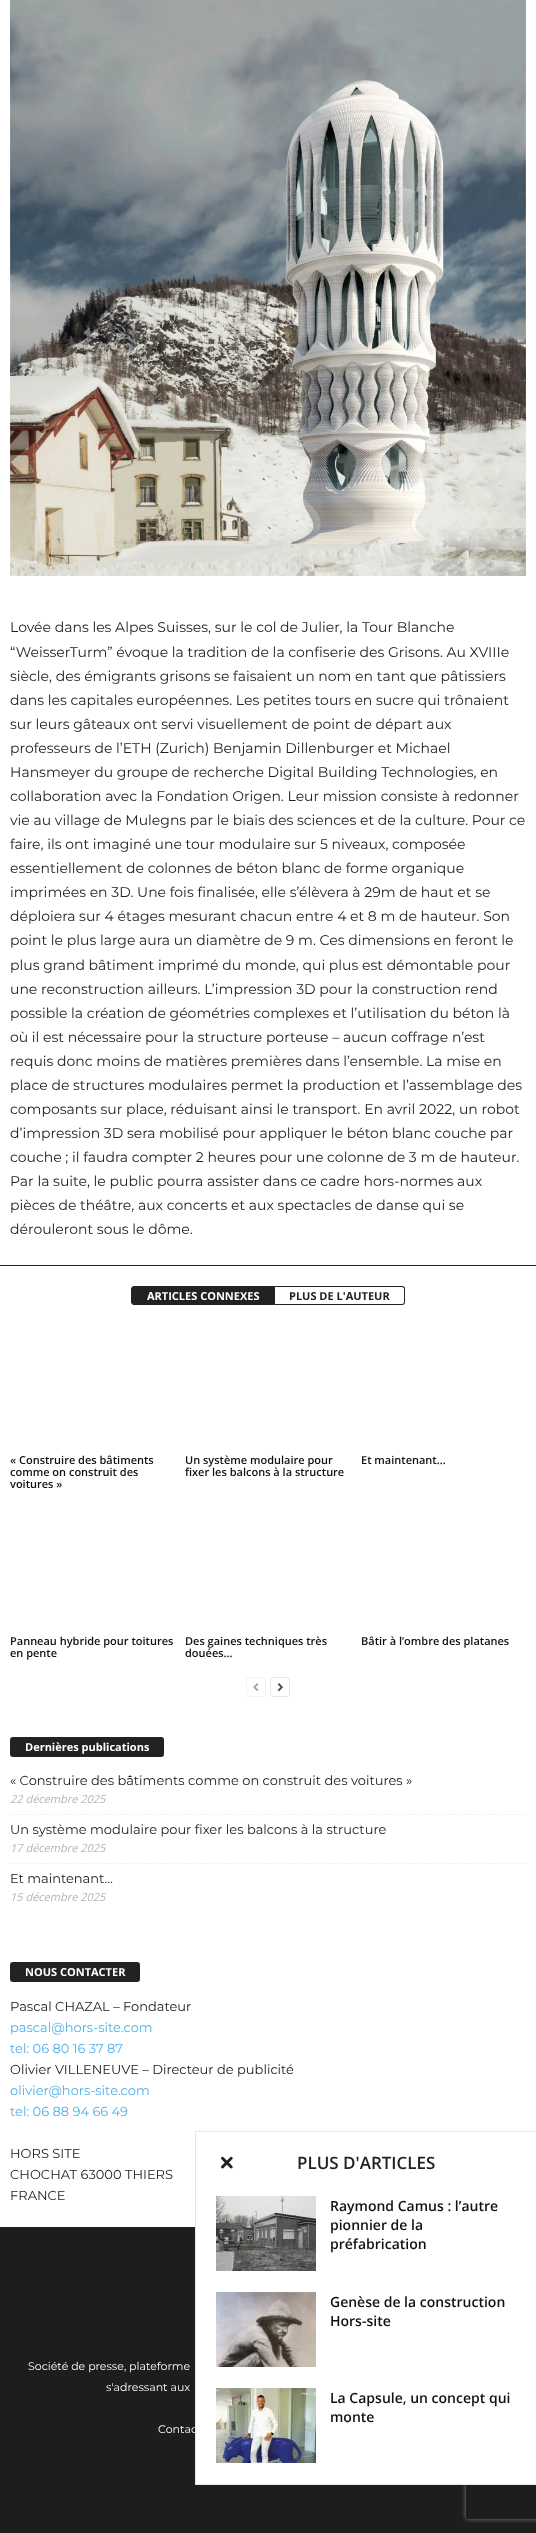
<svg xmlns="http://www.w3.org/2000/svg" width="536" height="2533">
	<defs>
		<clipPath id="clip1"><path d="M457 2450H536V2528H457ZM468 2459H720C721 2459 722 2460 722 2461V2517C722 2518 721 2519 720 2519H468C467 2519 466 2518 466 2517V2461C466 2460 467 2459 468 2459Z" clip-rule="evenodd" /></clipPath>
	</defs>
	<rect width="100%" height="100%" fill="#FFFFFF" />
	<rect x="0" y="2227" width="195" height="1" fill="#062644" />
	<image x="10" y="0" width="516" height="576" href="assets/img1.png" />
	<g font-family="Montserrat" font-size="14" font-weight="100" fill="#222222">
		<text x="10" y="632">Lovée dans les Alpes Suisses, sur le col de Julier, la Tour Blanche</text>
		<text x="10" y="657">“WeisserTurm” évoque la tradition de la confiserie des Grisons. Au XVIIIe</text>
		<text x="10" y="681">siècle, des émigrants grisons se faisaient un nom en tant que pâtissiers</text>
		<text x="10" y="705">dans les capitales européennes. Les petites tours en sucre qui trônaient</text>
		<text x="10" y="729">sur leurs gâteaux ont servi visuellement de point de départ aux</text>
		<text x="10" y="753">professeurs de l’ETH (Zurich) Benjamin Dillenburger et Michael</text>
		<text x="10" y="777">Hansmeyer du groupe de recherche Digital Building Technologies, en</text>
		<text x="10" y="801">collaboration avec la Fondation Origen. Leur mission consiste à redonner</text>
		<text x="10" y="825">vie au village de Mulegns par le biais des sciences et de la culture. Pour ce</text>
		<text x="10" y="849">faire, ils ont imaginé une tour modulaire sur 5 niveaux, composée</text>
		<text x="10" y="873">essentiellement de colonnes de béton blanc de forme organique</text>
		<text x="10" y="897">imprimées en 3D. Une fois finalisée, elle s’élèvera à 29m de haut et se</text>
		<text x="10" y="921">déploiera sur 4 étages mesurant chacun entre 4 et 8 m de hauteur. Son</text>
		<text x="10" y="945">point le plus large aura un diamètre de 9 m. Ces dimensions en feront le</text>
		<text x="10" y="970">plus grand bâtiment imprimé du monde, qui plus est démontable pour</text>
		<text x="10" y="994">une reconstruction ailleurs. L’impression 3D pour la construction rend</text>
		<text x="10" y="1018">possible la création de géométries complexes et l’utilisation du béton là</text>
		<text x="10" y="1042">où il est nécessaire pour la structure porteuse – aucun coffrage n’est</text>
		<text x="10" y="1066">requis donc moins de matières premières dans l’ensemble. La mise en</text>
		<text x="10" y="1090">place de structures modulaires permet la production et l’assemblage des</text>
		<text x="10" y="1114">composants sur place, réduisant ainsi le transport. En avril 2022, un robot</text>
		<text x="10" y="1138">d’impression 3D sera mobilisé pour appliquer le béton blanc couche par</text>
		<text x="10" y="1162">couche ; il faudra compter 2 heures pour une colonne de 3 m de hauteur.</text>
		<text x="10" y="1186">Par la suite, le public pourra assister dans ce cadre hors-normes aux</text>
		<text x="10" y="1210">pièces de théâtre, aux concerts et aux spectacles de danse qui se</text>
		<text x="10" y="1234">dérouleront sous le dôme.</text>
	</g>
	<rect x="0" y="1265" width="536" height="1" fill="#062644" />
	<path d="M134 1286.5H274.5V1304.5H134C132.5 1304.5 131.5 1303.5 131.5 1302V1289C131.5 1287.5 132.5 1286.5 134 1286.5Z" fill="#222222" stroke="#222222" />
	<text x="147" y="1300" font-family="Open Sans" font-size="11" font-weight="700" fill="#FFFFFF">ARTICLES CONNEXES</text>
	<path d="M275 1286H402C404 1286 405 1287 405 1289V1302C405 1304 404 1305 402 1305H275ZM275 1287H402C403 1287 404 1288 404 1289V1302C404 1303 403 1304 402 1304H275Z" fill="#222222" fill-rule="evenodd" />
	<text x="289" y="1300" font-family="Open Sans" font-size="11" font-weight="700" fill="#222222">PLUS DE L'AUTEUR</text>
	<g font-family="Open Sans" font-size="11" font-weight="600" fill="#111111">
		<text x="10" y="1464">« Construire des bâtiments</text>
		<text x="10" y="1476">comme on construit des</text>
		<text x="10" y="1488">voitures »</text>
		<text x="185" y="1464">Un système modulaire pour</text>
		<text x="185" y="1476">fixer les balcons à la structure</text>
		<text x="361" y="1464">Et maintenant…</text>
		<text x="10" y="1645">Panneau hybride pour toitures</text>
		<text x="10" y="1657">en pente</text>
		<text x="185" y="1645">Des gaines techniques très</text>
		<text x="185" y="1657">douées…</text>
		<text x="361" y="1645">Bâtir à l’ombre des platanes</text>
	</g>
	<rect x="246.5" y="1677.5" width="19" height="19" rx="2.5" fill="none" stroke="#F3F3F3" />
	<image x="253" y="1683" width="6" height="9" href="assets/img2.png" />
	<rect x="270.5" y="1677.5" width="19" height="19" rx="2.5" fill="none" stroke="#E6E6E6" />
	<image x="277" y="1683" width="6" height="9" href="assets/img3.png" />
	<rect x="10" y="1737" width="154" height="20" rx="3" fill="#222222" />
	<text x="25" y="1751" font-family="Open Sans" font-size="11" font-weight="700" fill="#FFFFFF">Dernières publications</text>
	<path d="M10 1814.5H526" fill="none" stroke="#F1F1F1" stroke-dasharray="3 1.98" />
	<text x="10" y="1785" font-family="Montserrat" font-size="13" font-weight="100" fill="#222222">« Construire des bâtiments comme on construit des voitures »</text>
	<text x="10" y="1803" font-family="Open Sans" font-size="11" font-style="italic" fill="#B5B5B5">22 décembre 2025</text>
	<path d="M10 1863.5H526" fill="none" stroke="#F1F1F1" stroke-dasharray="3 1.98" />
	<text x="10" y="1834" font-family="Montserrat" font-size="13" font-weight="100" fill="#222222">Un système modulaire pour fixer les balcons à la structure</text>
	<text x="10" y="1852" font-family="Open Sans" font-size="11" font-style="italic" fill="#B5B5B5">17 décembre 2025</text>
	<text x="10" y="1883" font-family="Montserrat" font-size="13" font-weight="100" fill="#222222">Et maintenant…</text>
	<text x="10" y="1901" font-family="Open Sans" font-size="11" font-style="italic" fill="#B5B5B5">15 décembre 2025</text>
	<rect x="10" y="1962" width="130" height="20" rx="3" fill="#222222" />
	<text x="25" y="1976" font-family="Open Sans" font-size="11" font-weight="700" fill="#FFFFFF">NOUS CONTACTER</text>
	<text x="10" y="2011" font-family="Montserrat" font-size="13" font-weight="100" fill="#222222">Pascal CHAZAL – Fondateur</text>
	<g font-family="Montserrat" font-size="13" font-weight="100" fill="#4DB2EC">
		<text x="10" y="2032">pascal@hors-site.com</text>
		<text x="10" y="2053">tel: 06 80 16 37 87</text>
	</g>
	<text x="10" y="2074" font-family="Montserrat" font-size="13" font-weight="100" fill="#222222">Olivier VILLENEUVE – Directeur de publicité</text>
	<g font-family="Montserrat" font-size="13" font-weight="100" fill="#4DB2EC">
		<text x="10" y="2095">olivier@hors-site.com</text>
		<text x="10" y="2116">tel: 06 88 94 66 49</text>
	</g>
	<g font-family="Montserrat" font-size="13" font-weight="100" fill="#222222">
		<text x="10" y="2158">HORS SITE</text>
		<text x="10" y="2179">CHOCHAT 63000 THIERS</text>
		<text x="10" y="2200">FRANCE</text>
	</g>
	<rect x="0" y="2228" width="536" height="305" fill="#1D1D1B" />
	<g font-family="Montserrat" font-size="11" font-weight="100" fill="#FFFFFF">
		<text x="28" y="2370">Société de presse, plateforme</text>
		<text x="106" y="2391">s'adressant aux</text>
		<text x="158" y="2433">Contac</text>
	</g>
	<g clip-path="url(#clip1)">
		<rect x="466" y="2459" width="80" height="60" rx="2" fill="#808080" filter="blur(2.5px)" />
	</g>
	<rect x="196" y="2228" width="340" height="256" fill="#FFFFFF" />
	<rect x="195" y="2131" width="341" height="1" fill="#E6E6E6" />
	<rect x="195" y="2484" width="341" height="1" fill="#E6E6E6" />
	<rect x="195" y="2131" width="1" height="354" fill="#E6E6E6" />
	<image x="221" y="2156" width="12" height="13" href="assets/img4.png" />
	<text x="297" y="2169" font-family="Open Sans" font-size="17" font-weight="600" fill="#222222">PLUS D'ARTICLES</text>
	<image x="216" y="2196" width="100" height="75" href="assets/img5.png" />
	<g font-family="Open Sans" font-size="14" font-weight="600" fill="#111111">
		<text x="330" y="2211">Raymond Camus : l’autre</text>
		<text x="330" y="2230">pionnier de la</text>
		<text x="330" y="2249">préfabrication</text>
	</g>
	<image x="216" y="2292" width="100" height="75" href="assets/img6.png" />
	<g font-family="Open Sans" font-size="14" font-weight="600" fill="#111111">
		<text x="330" y="2307">Genèse de la construction</text>
		<text x="330" y="2326">Hors-site</text>
	</g>
	<image x="216" y="2388" width="100" height="75" href="assets/img7.png" />
	<g font-family="Open Sans" font-size="14" font-weight="600" fill="#111111">
		<text x="330" y="2403">La Capsule, un concept qui</text>
		<text x="330" y="2422">monte</text>
	</g>
</svg>
